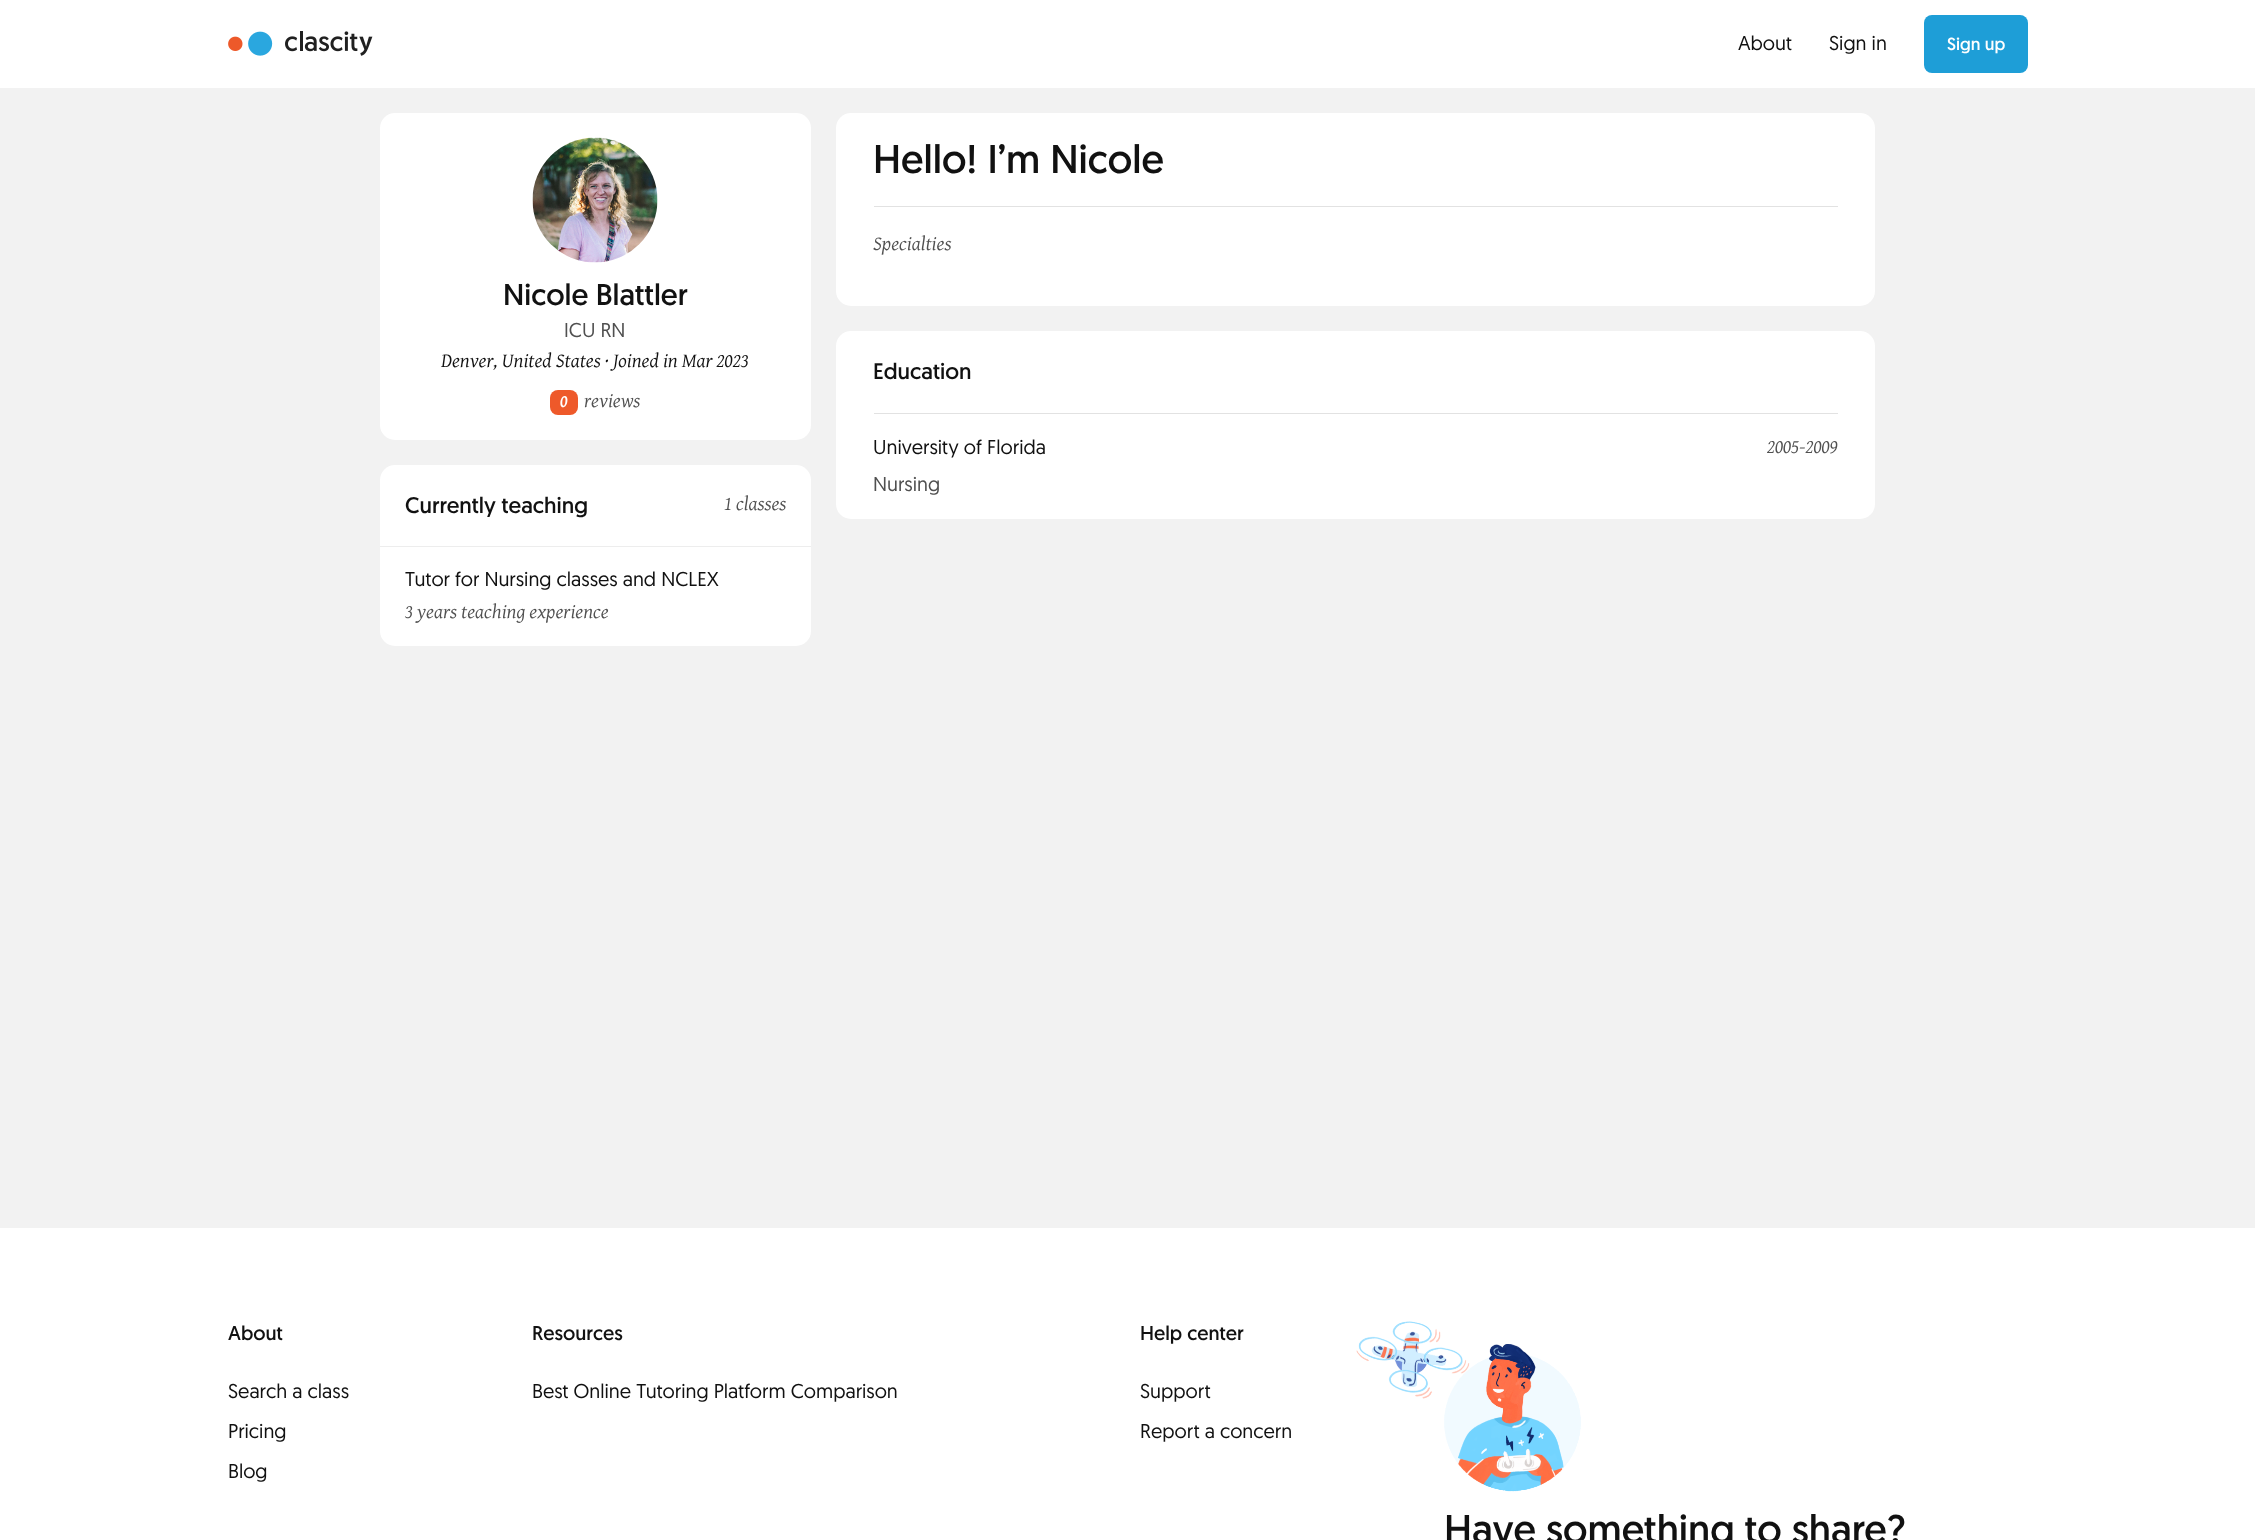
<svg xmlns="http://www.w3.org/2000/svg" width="2255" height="1540">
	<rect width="100%" height="100%" fill="#F2F2F2" />
	<rect x="0" y="0" width="2255" height="88" fill="#FFFFFF" />
	<image x="228" y="31" width="145" height="25" href="assets/img1.png" />
	<g font-family="'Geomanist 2'" font-size="20" fill="#111111">
		<text x="1738" y="50">About</text>
		<text x="1829" y="50">Sign in</text>
	</g>
	<rect x="1924" y="15" width="104" height="58" rx="8" fill="#1E9ED7" />
	<text x="1947" y="50" font-family="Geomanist" font-size="17.5" fill="#FFFFFF">Sign up</text>
	<rect x="380" y="113" width="431" height="327" rx="15" fill="#FFFFFF" />
	<image x="532" y="137" width="126" height="126" href="assets/img2.png" />
	<text x="503" y="305" font-family="Geomanist" font-size="30" fill="#111111">Nicole Blattler</text>
	<text x="564" y="337" font-family="'Geomanist 2'" font-size="20" fill="#505050">ICU RN</text>
	<text x="441" y="367" font-family="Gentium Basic" font-size="20" font-style="italic" fill="#111111">Denver, United States · Joined in Mar 2023</text>
	<rect x="550" y="390" width="28" height="25" rx="8" fill="#EE592A" />
	<text x="560" y="407" font-family="Gentium Basic" font-size="17.5" font-weight="700" font-style="italic" fill="#FFFFFF">0</text>
	<text x="584" y="407" font-family="Gentium Basic" font-size="20" font-style="italic" fill="#505050">reviews</text>
	<rect x="380" y="465" width="431" height="181" rx="15" fill="#FFFFFF" />
	<rect x="380" y="546" width="431" height="1" fill="#EDEDED" />
	<text x="405" y="513" font-family="Geomanist" font-size="22.5" fill="#111111">Currently teaching</text>
	<text x="724" y="510" font-family="Gentium Basic" font-size="20" font-style="italic" fill="#505050">1 classes</text>
	<text x="405" y="586" font-family="'Geomanist 2'" font-size="20" fill="#111111">Tutor for Nursing classes and NCLEX</text>
	<text x="405" y="618" font-family="Gentium Basic" font-size="20" font-style="italic" fill="#505050">3 years teaching experience</text>
	<rect x="836" y="113" width="1039" height="193" rx="15" fill="#FFFFFF" />
	<rect x="874" y="206" width="964" height="1" fill="#E2E2E2" />
	<text x="873" y="173" font-family="Geomanist" font-size="40" fill="#111111">Hello! I’m Nicole</text>
	<text x="873" y="250" font-family="Gentium Basic" font-size="20" font-style="italic" fill="#505050">Specialties</text>
	<rect x="836" y="331" width="1039" height="188" rx="15" fill="#FFFFFF" />
	<rect x="874" y="413" width="964" height="1" fill="#E2E2E2" />
	<text x="873" y="379" font-family="Geomanist" font-size="22.5" fill="#111111">Education</text>
	<text x="873" y="454" font-family="'Geomanist 2'" font-size="20" fill="#111111">University of Florida</text>
	<text x="1767" y="453" font-family="Gentium Basic" font-size="20" font-style="italic" fill="#505050">2005-2009</text>
	<text x="873" y="491" font-family="'Geomanist 2'" font-size="20" fill="#505050">Nursing</text>
	<rect x="0" y="1228" width="2255" height="312" fill="#FFFFFF" />
	<text x="228" y="1340" font-family="Geomanist" font-size="20" fill="#111111">About</text>
	<g font-family="'Geomanist 2'" font-size="20" fill="#111111">
		<text x="228" y="1398">Search a class</text>
		<text x="228" y="1438">Pricing</text>
		<text x="228" y="1478">Blog</text>
	</g>
	<text x="532" y="1340" font-family="Geomanist" font-size="20" fill="#111111">Resources</text>
	<text x="532" y="1398" font-family="'Geomanist 2'" font-size="20" fill="#111111">Best Online Tutoring Platform Comparison</text>
	<text x="1140" y="1340" font-family="Geomanist" font-size="20" fill="#111111">Help center</text>
	<g font-family="'Geomanist 2'" font-size="20" fill="#111111">
		<text x="1140" y="1398">Support</text>
		<text x="1140" y="1438">Report a concern</text>
	</g>
	<image x="1356" y="1321" width="225" height="171" href="assets/img3.png" />
	<text x="1444" y="1543" font-family="Geomanist" font-size="40" fill="#111111">Have something to share?</text>
</svg>
